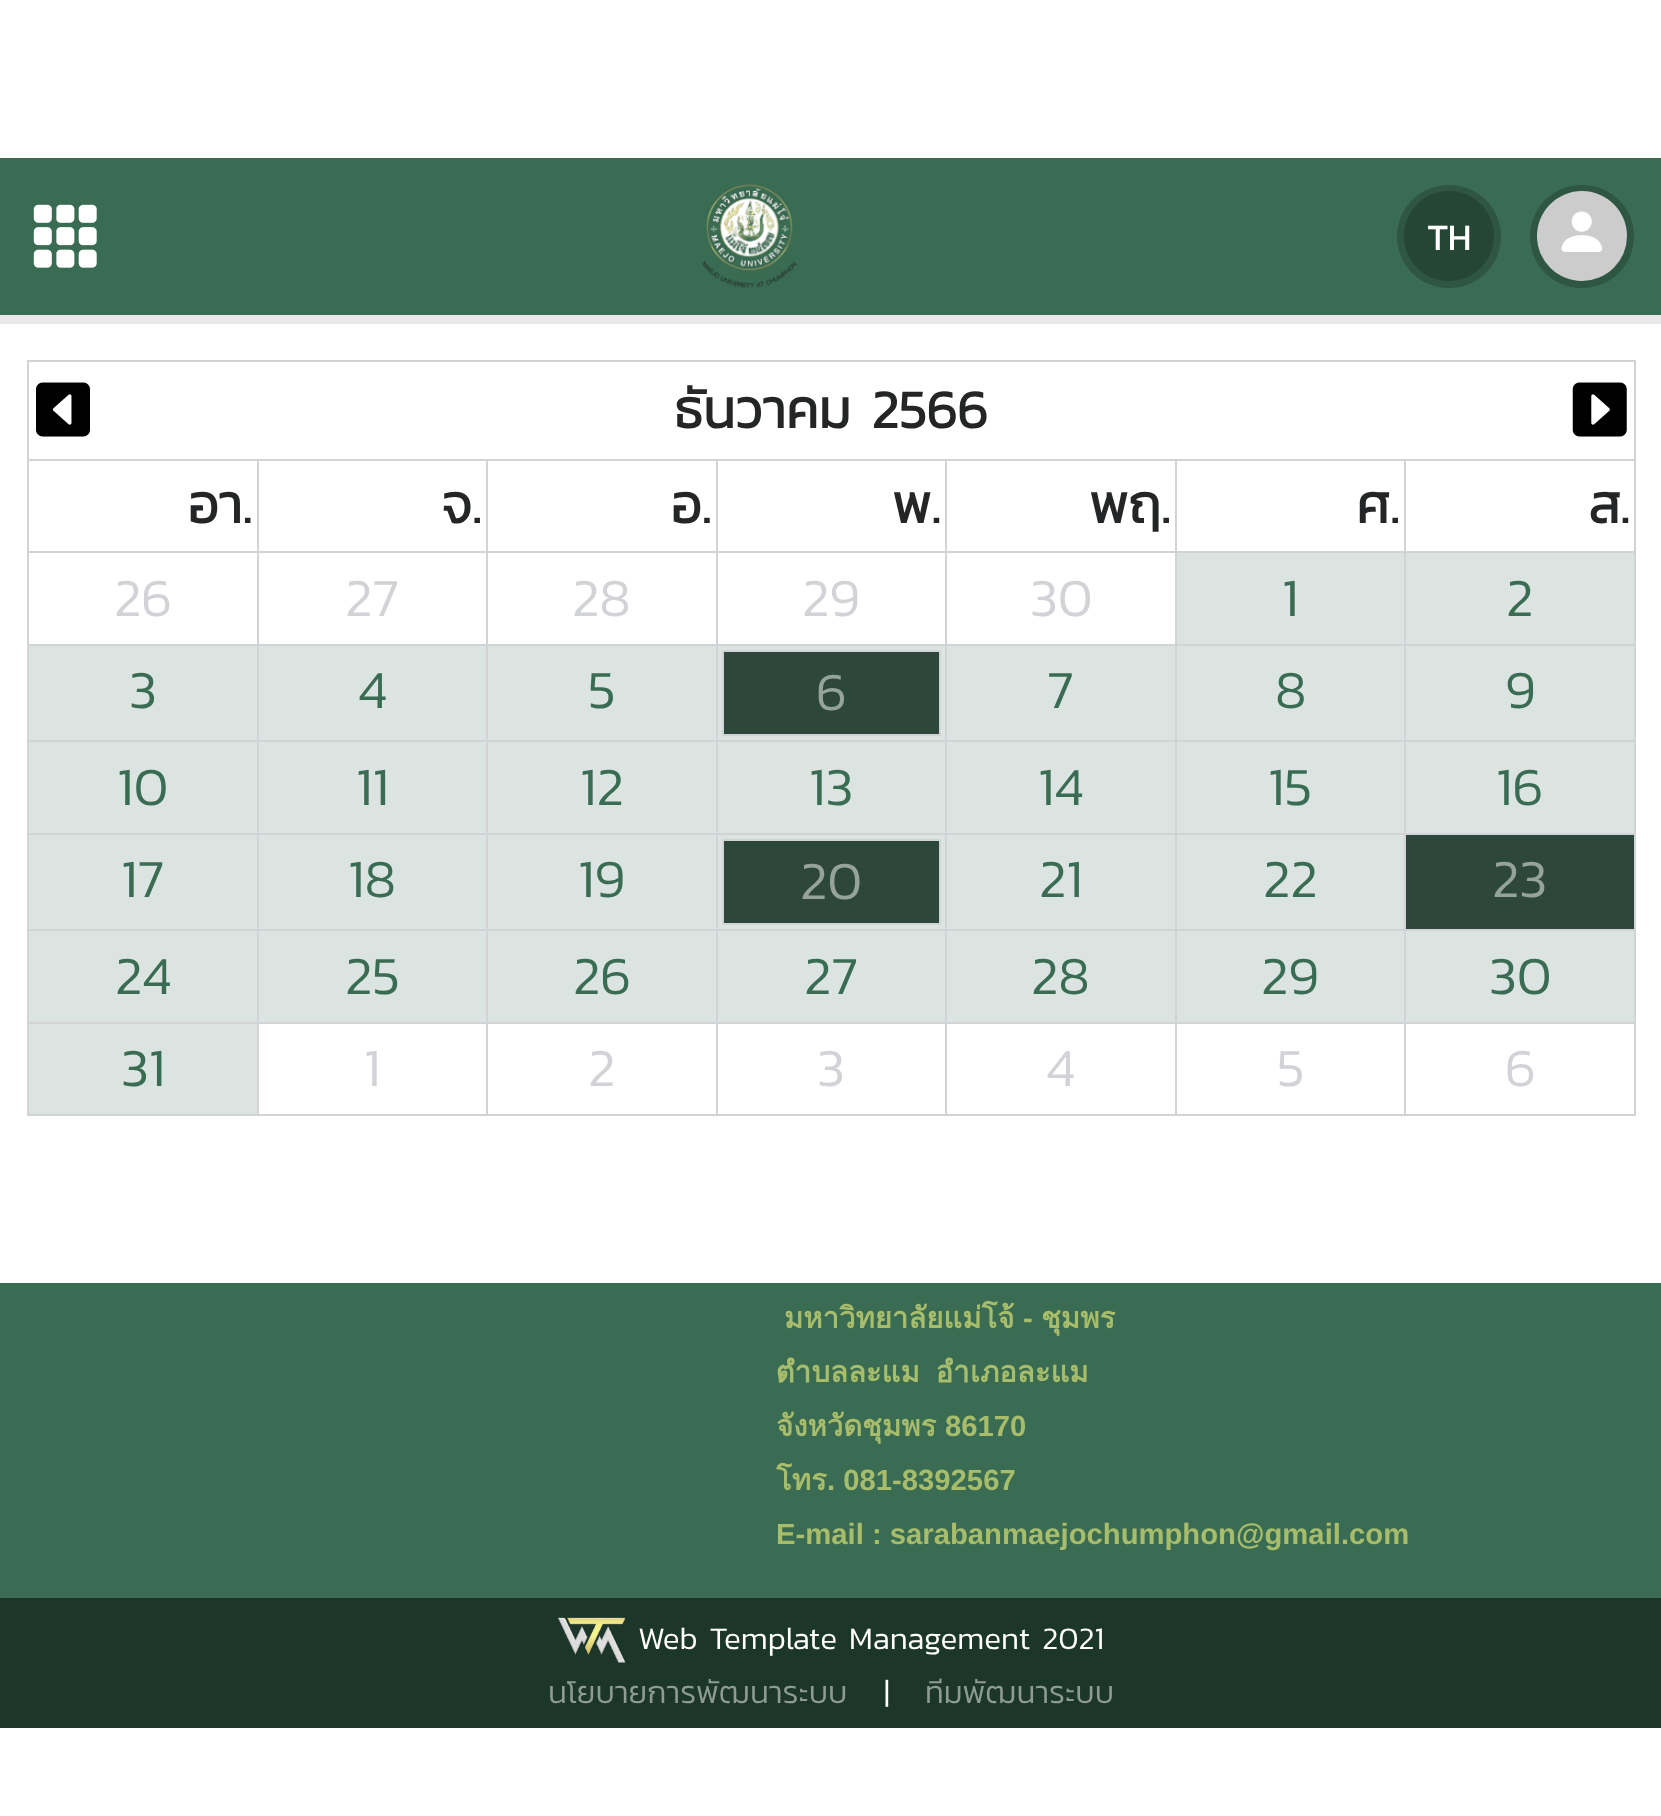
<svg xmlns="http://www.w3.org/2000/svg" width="1661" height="1816">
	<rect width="100%" height="100%" fill="#FFFFFF" />
	<rect x="0" y="158" width="1661" height="157" fill="#3A6C53" />
	<image x="33" y="204" width="64" height="64" href="assets/img1.png" />
	<image x="702" y="184" width="95" height="104" href="assets/img2.png" />
	<rect x="1397" y="185" width="104" height="103" rx="51.5" fill="#2E5642" />
	<circle cx="1449" cy="236" r="45" fill="#254535" />
	<text x="1427" y="250" font-family="Kanit" font-size="36" font-weight="700" fill="#FFFFFF">TH</text>
	<rect x="1530" y="185" width="104" height="103" rx="51.5" fill="#2E5642" />
	<circle cx="1582" cy="236" r="45" fill="#CCCCCC" />
	<image x="1561" y="211" width="41" height="41" href="assets/img3.png" />
	<rect x="0" y="315" width="1661" height="9" fill="#E8E8E8" />
	<rect x="27" y="360" width="1609" height="2" fill="#D1D3D6" />
	<rect x="1634" y="360" width="2" height="756" fill="#D1D3D6" />
	<rect x="27" y="1114" width="1609" height="2" fill="#D1D3D6" />
	<rect x="27" y="360" width="2" height="756" fill="#D1D3D6" />
	<image x="36" y="382" width="54" height="55" href="assets/img4.png" />
	<text x="674" y="428" font-family="Kanit" font-size="54" font-weight="700" fill="#232526">ธันวาคม 2566</text>
	<image x="1572" y="382" width="55" height="55" href="assets/img5.png" />
	<rect x="1404" y="459" width="232" height="2" fill="#D1D3D6" />
	<rect x="1404" y="551" width="232" height="2" fill="#D1D3D6" />
	<rect x="1404" y="644" width="232" height="2" fill="#D1D3D6" />
	<rect x="1404" y="740" width="232" height="2" fill="#D1D3D6" />
	<rect x="1404" y="833" width="232" height="2" fill="#D1D3D6" />
	<rect x="1404" y="929" width="232" height="2" fill="#D1D3D6" />
	<rect x="1404" y="1022" width="232" height="2" fill="#D1D3D6" />
	<rect x="1404" y="1022" width="2" height="94" fill="#D1D3D6" />
	<rect x="1175" y="1022" width="231" height="2" fill="#D1D3D6" />
	<rect x="1404" y="929" width="2" height="95" fill="#D1D3D6" />
	<rect x="1175" y="929" width="231" height="2" fill="#D1D3D6" />
	<rect x="1404" y="833" width="2" height="99" fill="#D1D3D6" />
	<rect x="1175" y="833" width="231" height="2" fill="#D1D3D6" />
	<rect x="1404" y="740" width="2" height="95" fill="#D1D3D6" />
	<rect x="1175" y="740" width="231" height="2" fill="#D1D3D6" />
	<rect x="1404" y="644" width="2" height="99" fill="#D1D3D6" />
	<rect x="1175" y="644" width="231" height="2" fill="#D1D3D6" />
	<rect x="1404" y="551" width="2" height="95" fill="#D1D3D6" />
	<rect x="1175" y="551" width="231" height="2" fill="#D1D3D6" />
	<rect x="1404" y="459" width="2" height="95" fill="#D1D3D6" />
	<rect x="1175" y="459" width="231" height="2" fill="#D1D3D6" />
	<rect x="1175" y="1022" width="2" height="94" fill="#D1D3D6" />
	<rect x="945" y="1022" width="232" height="2" fill="#D1D3D6" />
	<rect x="1175" y="929" width="2" height="95" fill="#D1D3D6" />
	<rect x="945" y="929" width="232" height="2" fill="#D1D3D6" />
	<rect x="1175" y="833" width="2" height="99" fill="#D1D3D6" />
	<rect x="945" y="833" width="232" height="2" fill="#D1D3D6" />
	<rect x="1175" y="740" width="2" height="95" fill="#D1D3D6" />
	<rect x="945" y="740" width="232" height="2" fill="#D1D3D6" />
	<rect x="1175" y="644" width="2" height="99" fill="#D1D3D6" />
	<rect x="945" y="644" width="232" height="2" fill="#D1D3D6" />
	<rect x="1175" y="551" width="2" height="95" fill="#D1D3D6" />
	<rect x="945" y="551" width="232" height="2" fill="#D1D3D6" />
	<rect x="1175" y="459" width="2" height="95" fill="#D1D3D6" />
	<rect x="945" y="459" width="232" height="2" fill="#D1D3D6" />
	<rect x="945" y="1022" width="2" height="94" fill="#D1D3D6" />
	<rect x="716" y="1022" width="231" height="2" fill="#D1D3D6" />
	<rect x="945" y="929" width="2" height="95" fill="#D1D3D6" />
	<rect x="716" y="929" width="231" height="2" fill="#D1D3D6" />
	<rect x="945" y="833" width="2" height="99" fill="#D1D3D6" />
	<rect x="716" y="833" width="231" height="2" fill="#D1D3D6" />
	<rect x="945" y="740" width="2" height="95" fill="#D1D3D6" />
	<rect x="716" y="740" width="231" height="2" fill="#D1D3D6" />
	<rect x="945" y="644" width="2" height="99" fill="#D1D3D6" />
	<rect x="716" y="644" width="231" height="2" fill="#D1D3D6" />
	<rect x="945" y="551" width="2" height="95" fill="#D1D3D6" />
	<rect x="716" y="551" width="231" height="2" fill="#D1D3D6" />
	<rect x="945" y="459" width="2" height="95" fill="#D1D3D6" />
	<rect x="716" y="459" width="231" height="2" fill="#D1D3D6" />
	<rect x="716" y="1022" width="2" height="94" fill="#D1D3D6" />
	<rect x="486" y="1022" width="232" height="2" fill="#D1D3D6" />
	<rect x="716" y="929" width="2" height="95" fill="#D1D3D6" />
	<rect x="486" y="929" width="232" height="2" fill="#D1D3D6" />
	<rect x="716" y="833" width="2" height="99" fill="#D1D3D6" />
	<rect x="486" y="833" width="232" height="2" fill="#D1D3D6" />
	<rect x="716" y="740" width="2" height="95" fill="#D1D3D6" />
	<rect x="486" y="740" width="232" height="2" fill="#D1D3D6" />
	<rect x="716" y="644" width="2" height="99" fill="#D1D3D6" />
	<rect x="486" y="644" width="232" height="2" fill="#D1D3D6" />
	<rect x="716" y="551" width="2" height="95" fill="#D1D3D6" />
	<rect x="486" y="551" width="232" height="2" fill="#D1D3D6" />
	<rect x="716" y="459" width="2" height="95" fill="#D1D3D6" />
	<rect x="486" y="459" width="232" height="2" fill="#D1D3D6" />
	<rect x="486" y="1022" width="2" height="94" fill="#D1D3D6" />
	<rect x="257" y="1022" width="231" height="2" fill="#D1D3D6" />
	<rect x="486" y="929" width="2" height="95" fill="#D1D3D6" />
	<rect x="257" y="929" width="231" height="2" fill="#D1D3D6" />
	<rect x="486" y="833" width="2" height="99" fill="#D1D3D6" />
	<rect x="257" y="833" width="231" height="2" fill="#D1D3D6" />
	<rect x="486" y="740" width="2" height="95" fill="#D1D3D6" />
	<rect x="257" y="740" width="231" height="2" fill="#D1D3D6" />
	<rect x="486" y="644" width="2" height="99" fill="#D1D3D6" />
	<rect x="257" y="644" width="231" height="2" fill="#D1D3D6" />
	<rect x="486" y="551" width="2" height="95" fill="#D1D3D6" />
	<rect x="257" y="551" width="231" height="2" fill="#D1D3D6" />
	<rect x="486" y="459" width="2" height="95" fill="#D1D3D6" />
	<rect x="257" y="459" width="231" height="2" fill="#D1D3D6" />
	<rect x="257" y="1022" width="2" height="94" fill="#D1D3D6" />
	<rect x="27" y="1022" width="232" height="2" fill="#D1D3D6" />
	<rect x="257" y="929" width="2" height="95" fill="#D1D3D6" />
	<rect x="27" y="929" width="232" height="2" fill="#D1D3D6" />
	<rect x="257" y="833" width="2" height="99" fill="#D1D3D6" />
	<rect x="27" y="833" width="232" height="2" fill="#D1D3D6" />
	<rect x="257" y="740" width="2" height="95" fill="#D1D3D6" />
	<rect x="27" y="740" width="232" height="2" fill="#D1D3D6" />
	<rect x="257" y="644" width="2" height="99" fill="#D1D3D6" />
	<rect x="27" y="644" width="232" height="2" fill="#D1D3D6" />
	<rect x="257" y="551" width="2" height="95" fill="#D1D3D6" />
	<rect x="27" y="551" width="232" height="2" fill="#D1D3D6" />
	<rect x="257" y="459" width="2" height="95" fill="#D1D3D6" />
	<rect x="27" y="459" width="232" height="2" fill="#D1D3D6" />
	<g font-family="Kanit" font-size="54" font-weight="700" fill="#232526">
		<text x="188" y="523">อา.</text>
		<text x="441" y="523">จ.</text>
		<text x="671" y="523">อ.</text>
		<text x="892" y="523">พ.</text>
		<text x="1089" y="523">พฤ.</text>
		<text x="1356" y="523">ศ.</text>
		<text x="1588" y="523">ส.</text>
	</g>
	<g font-family="Kanit" font-size="54" font-weight="300" fill="#D1D3D6">
		<text x="114" y="616">26</text>
		<text x="345" y="616">27</text>
		<text x="572" y="616">28</text>
		<text x="802" y="616">29</text>
		<text x="1030" y="616">30</text>
	</g>
	<rect x="1177" y="553" width="227" height="91" fill="#DBE4E0" />
	<text x="1282" y="616" font-family="Kanit" font-size="54" font-weight="300" fill="#3A6C53">1</text>
	<rect x="1406" y="553" width="228" height="91" fill="#DBE4E0" />
	<text x="1506" y="616" font-family="Kanit" font-size="54" font-weight="300" fill="#3A6C53">2</text>
	<rect x="29" y="646" width="228" height="94" fill="#DBE4E0" />
	<text x="129" y="708" font-family="Kanit" font-size="54" font-weight="300" fill="#3A6C53">3</text>
	<rect x="259" y="646" width="227" height="94" fill="#DBE4E0" />
	<text x="358" y="708" font-family="Kanit" font-size="54" font-weight="300" fill="#3A6C53">4</text>
	<rect x="488" y="646" width="228" height="94" fill="#DBE4E0" />
	<text x="588" y="708" font-family="Kanit" font-size="54" font-weight="300" fill="#3A6C53">5</text>
	<rect x="718" y="646" width="227" height="94" fill="#DBE4E0" />
	<rect x="723" y="651" width="217" height="84" fill="#2D473B" stroke="#D1D3D6" stroke-width="2" />
	<text x="816" y="710" font-family="Kanit" font-size="54" font-weight="300" fill="#96A39D">6</text>
	<rect x="947" y="646" width="228" height="94" fill="#DBE4E0" />
	<text x="1047" y="708" font-family="Kanit" font-size="54" font-weight="300" fill="#3A6C53">7</text>
	<rect x="1177" y="646" width="227" height="94" fill="#DBE4E0" />
	<text x="1275" y="708" font-family="Kanit" font-size="54" font-weight="300" fill="#3A6C53">8</text>
	<rect x="1406" y="646" width="228" height="94" fill="#DBE4E0" />
	<text x="1505" y="708" font-family="Kanit" font-size="54" font-weight="300" fill="#3A6C53">9</text>
	<rect x="29" y="742" width="228" height="91" fill="#DBE4E0" />
	<text x="117" y="805" font-family="Kanit" font-size="54" font-weight="300" fill="#3A6C53">10</text>
	<rect x="259" y="742" width="227" height="91" fill="#DBE4E0" />
	<text x="356" y="805" font-family="Kanit" font-size="54" font-weight="300" fill="#3A6C53">11</text>
	<rect x="488" y="742" width="228" height="91" fill="#DBE4E0" />
	<text x="580" y="805" font-family="Kanit" font-size="54" font-weight="300" fill="#3A6C53">12</text>
	<rect x="718" y="742" width="227" height="91" fill="#DBE4E0" />
	<text x="809" y="805" font-family="Kanit" font-size="54" font-weight="300" fill="#3A6C53">13</text>
	<rect x="947" y="742" width="228" height="91" fill="#DBE4E0" />
	<text x="1038" y="805" font-family="Kanit" font-size="54" font-weight="300" fill="#3A6C53">14</text>
	<rect x="1177" y="742" width="227" height="91" fill="#DBE4E0" />
	<text x="1268" y="805" font-family="Kanit" font-size="54" font-weight="300" fill="#3A6C53">15</text>
	<rect x="1406" y="742" width="228" height="91" fill="#DBE4E0" />
	<text x="1496" y="805" font-family="Kanit" font-size="54" font-weight="300" fill="#3A6C53">16</text>
	<rect x="29" y="835" width="228" height="94" fill="#DBE4E0" />
	<text x="121" y="897" font-family="Kanit" font-size="54" font-weight="300" fill="#3A6C53">17</text>
	<rect x="259" y="835" width="227" height="94" fill="#DBE4E0" />
	<text x="348" y="897" font-family="Kanit" font-size="54" font-weight="300" fill="#3A6C53">18</text>
	<rect x="488" y="835" width="228" height="94" fill="#DBE4E0" />
	<text x="578" y="897" font-family="Kanit" font-size="54" font-weight="300" fill="#3A6C53">19</text>
	<rect x="718" y="835" width="227" height="94" fill="#DBE4E0" />
	<rect x="723" y="840" width="217" height="84" fill="#2D473B" stroke="#D1D3D6" stroke-width="2" />
	<text x="800" y="899" font-family="Kanit" font-size="54" font-weight="300" fill="#96A39D">20</text>
	<rect x="947" y="835" width="228" height="94" fill="#DBE4E0" />
	<text x="1039" y="897" font-family="Kanit" font-size="54" font-weight="300" fill="#3A6C53">21</text>
	<rect x="1177" y="835" width="227" height="94" fill="#DBE4E0" />
	<text x="1263" y="897" font-family="Kanit" font-size="54" font-weight="300" fill="#3A6C53">22</text>
	<rect x="1406" y="835" width="228" height="94" fill="#2D473B" />
	<text x="1492" y="897" font-family="Kanit" font-size="54" font-weight="300" fill="#96A39D">23</text>
	<rect x="29" y="931" width="228" height="91" fill="#DBE4E0" />
	<text x="115" y="994" font-family="Kanit" font-size="54" font-weight="300" fill="#3A6C53">24</text>
	<rect x="259" y="931" width="227" height="91" fill="#DBE4E0" />
	<text x="345" y="994" font-family="Kanit" font-size="54" font-weight="300" fill="#3A6C53">25</text>
	<rect x="488" y="931" width="228" height="91" fill="#DBE4E0" />
	<text x="573" y="994" font-family="Kanit" font-size="54" font-weight="300" fill="#3A6C53">26</text>
	<rect x="718" y="931" width="227" height="91" fill="#DBE4E0" />
	<text x="804" y="994" font-family="Kanit" font-size="54" font-weight="300" fill="#3A6C53">27</text>
	<rect x="947" y="931" width="228" height="91" fill="#DBE4E0" />
	<text x="1031" y="994" font-family="Kanit" font-size="54" font-weight="300" fill="#3A6C53">28</text>
	<rect x="1177" y="931" width="227" height="91" fill="#DBE4E0" />
	<text x="1261" y="994" font-family="Kanit" font-size="54" font-weight="300" fill="#3A6C53">29</text>
	<rect x="1406" y="931" width="228" height="91" fill="#DBE4E0" />
	<text x="1489" y="994" font-family="Kanit" font-size="54" font-weight="300" fill="#3A6C53">30</text>
	<rect x="29" y="1024" width="228" height="90" fill="#DBE4E0" />
	<text x="121" y="1086" font-family="Kanit" font-size="54" font-weight="300" fill="#3A6C53">31</text>
	<g font-family="Kanit" font-size="54" font-weight="300" fill="#D1D3D6">
		<text x="364" y="1086">1</text>
		<text x="588" y="1086">2</text>
		<text x="817" y="1086">3</text>
		<text x="1046" y="1086">4</text>
		<text x="1277" y="1086">5</text>
		<text x="1505" y="1086">6</text>
	</g>
	<rect x="0" y="1283" width="1661" height="315" fill="#3A6C53" />
	<text x="784" y="1328" font-family="Loma" font-size="29.25" font-weight="700" fill="#A8BD6B">มหาวิทยาลัยแม่โจ้</text>
	<text x="1023" y="1328" font-family="Liberation Sans" font-size="29.25" font-weight="700" fill="#A8BD6B">-</text>
	<g font-family="Loma" font-size="29.25" font-weight="700" fill="#A8BD6B">
		<text x="1041" y="1328">ชุมพร</text>
		<text x="776" y="1382">ตำบลละแม</text>
		<text x="936" y="1382">อำเภอละแม</text>
		<text x="776" y="1436">จังหวัดชุมพร</text>
	</g>
	<text x="945" y="1436" font-family="Liberation Sans" font-size="29.25" font-weight="700" fill="#A8BD6B">86170</text>
	<text x="776" y="1490" font-family="Loma" font-size="29.25" font-weight="700" fill="#A8BD6B">โทร</text>
	<g font-family="Liberation Sans" font-size="29.25" font-weight="700" fill="#A8BD6B">
		<text x="827" y="1490">. 081-8392567</text>
		<text x="776" y="1544">E-mail : sarabanmaejochumphon@gmail.com</text>
	</g>
	<rect x="0" y="1598" width="1661" height="130" fill="#1D362A" />
	<image x="558" y="1617" width="68" height="46" href="assets/img6.png" />
	<text x="638" y="1649" font-family="Kanit" font-size="31.5" font-weight="300" fill="#FFFFFF">Web Template Management 2021</text>
	<text x="548" y="1703" font-family="Kanit" font-size="31.5" font-weight="300" fill="#8E9B95">นโยบายการพัฒนาระบบ</text>
	<text x="884" y="1703" font-family="Kanit" font-size="31.5" font-weight="300" fill="#FFFFFF">|</text>
	<text x="925" y="1703" font-family="Kanit" font-size="31.5" font-weight="300" fill="#8E9B95">ทีมพัฒนาระบบ</text>
</svg>
